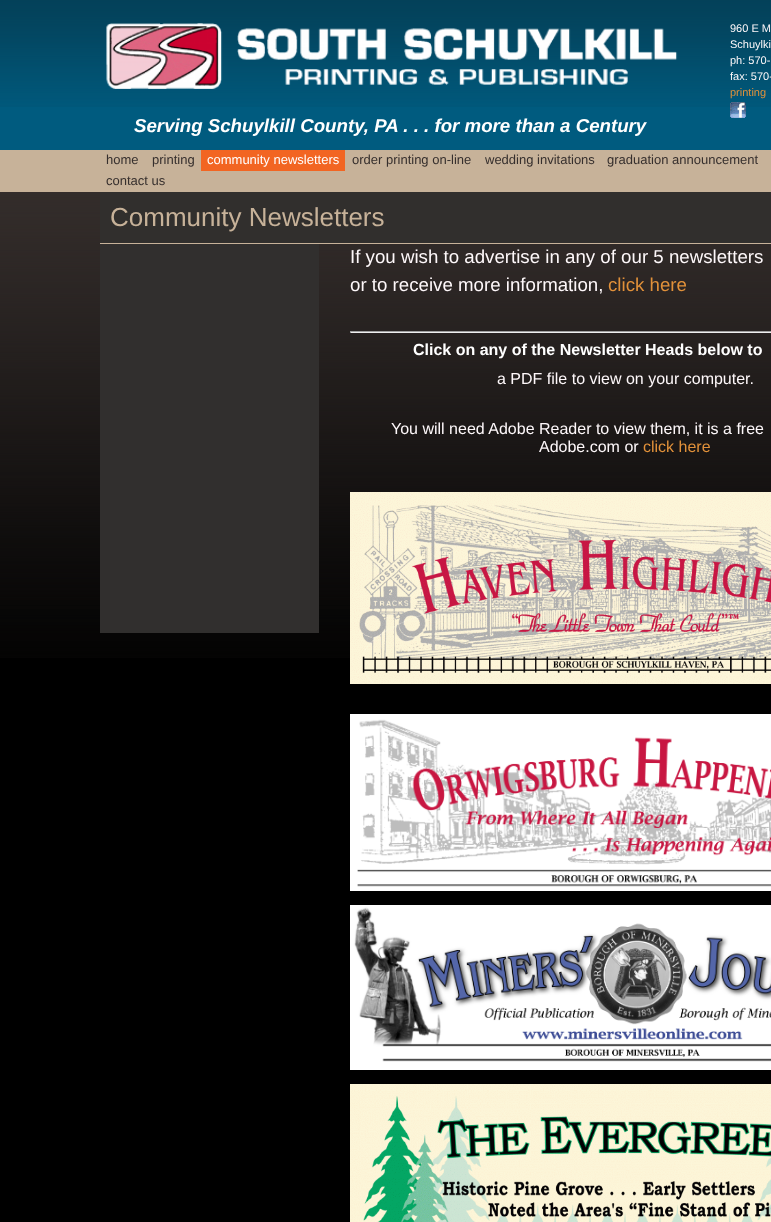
<svg xmlns="http://www.w3.org/2000/svg" width="771" height="1222">
	<rect width="100%" height="100%" fill="#000000" />
	<image x="0" y="192" width="771" height="466" href="assets/img1.png" />
	<rect x="0" y="107" width="771" height="43" fill="#005B7F" />
	<image x="0" y="0" width="771" height="107" href="assets/img2.png" />
	<g font-family="Liberation Sans" font-size="11" fill="#FEF8FA">
		<text x="730" y="32">960 E M</text>
		<text x="730" y="48">Schuylki</text>
		<text x="730" y="64">ph: 570-</text>
		<text x="730" y="80">fax: 570-</text>
	</g>
	<text x="730" y="96" font-family="Liberation Sans" font-size="11" fill="#E1913A">printing</text>
	<image x="730" y="102" width="16" height="16" href="assets/img3.png" />
	<image x="106" y="23" width="572" height="66" href="assets/img4.png" />
	<text x="134" y="132" font-family="Liberation Sans" font-size="18.7" font-weight="700" font-style="italic" fill="#FFFFFF">Serving Schuylkill County, PA . . . for more than a Century</text>
	<rect x="0" y="150" width="771" height="42" fill="#C7B299" />
	<g font-family="Liberation Sans" font-size="13" fill="#362F2D">
		<text x="106" y="164">home</text>
		<text x="152" y="164">printing</text>
	</g>
	<rect x="201" y="150" width="144" height="21" fill="#F26522" />
	<text x="207" y="164" font-family="Liberation Sans" font-size="13" fill="#FFFFFF">community newsletters</text>
	<g font-family="Liberation Sans" font-size="13" fill="#362F2D">
		<text x="352" y="164">order printing on-line</text>
		<text x="485" y="164">wedding invitations</text>
		<text x="607" y="164">graduation announcement</text>
		<text x="106" y="185">contact us</text>
	</g>
	<rect x="100" y="244" width="219" height="389" fill="#312F2E" />
	<rect x="100" y="192" width="671" height="51" fill="#312F2D" />
	<rect x="100" y="243" width="671" height="1" fill="#C7B299" />
	<text x="110" y="226" font-family="Liberation Sans" font-size="26" fill="#C7B299">Community Newsletters</text>
	<g font-family="Liberation Sans" font-size="18.7" fill="#FEF8FA">
		<text x="350" y="263">If you wish to advertise in any of our 5 newsletters</text>
		<text x="350" y="291">or to receive more information,</text>
	</g>
	<text x="608" y="291" font-family="Liberation Sans" font-size="18.7" fill="#E1913A">click here</text>
	<rect x="350" y="331" width="421" height="1" fill="#9F9F9F" />
	<rect x="350" y="332" width="421" height="1" fill="#EEEEEE" />
	<rect x="350" y="331" width="1" height="2" fill="#9F9F9F" />
	<text x="413" y="355" font-family="Liberation Sans" font-size="16" font-weight="700" fill="#FFFFFF">Click on any of the Newsletter Heads below to</text>
	<g font-family="Liberation Sans" font-size="16" fill="#FEF8FA">
		<text x="497" y="384">a PDF file to view on your computer.</text>
		<text x="391" y="434">You will need Adobe Reader to view them, it is a free</text>
		<text x="539" y="452">Adobe.com or</text>
	</g>
	<text x="643" y="452" font-family="Liberation Sans" font-size="16" fill="#E1913A">click here</text>
	<image x="350" y="492" width="421" height="192" href="assets/img5.png" />
	<image x="350" y="714" width="421" height="177" href="assets/img6.png" />
	<image x="350" y="905" width="421" height="165" href="assets/img7.png" />
	<image x="350" y="1084" width="421" height="138" href="assets/img8.png" />
</svg>
